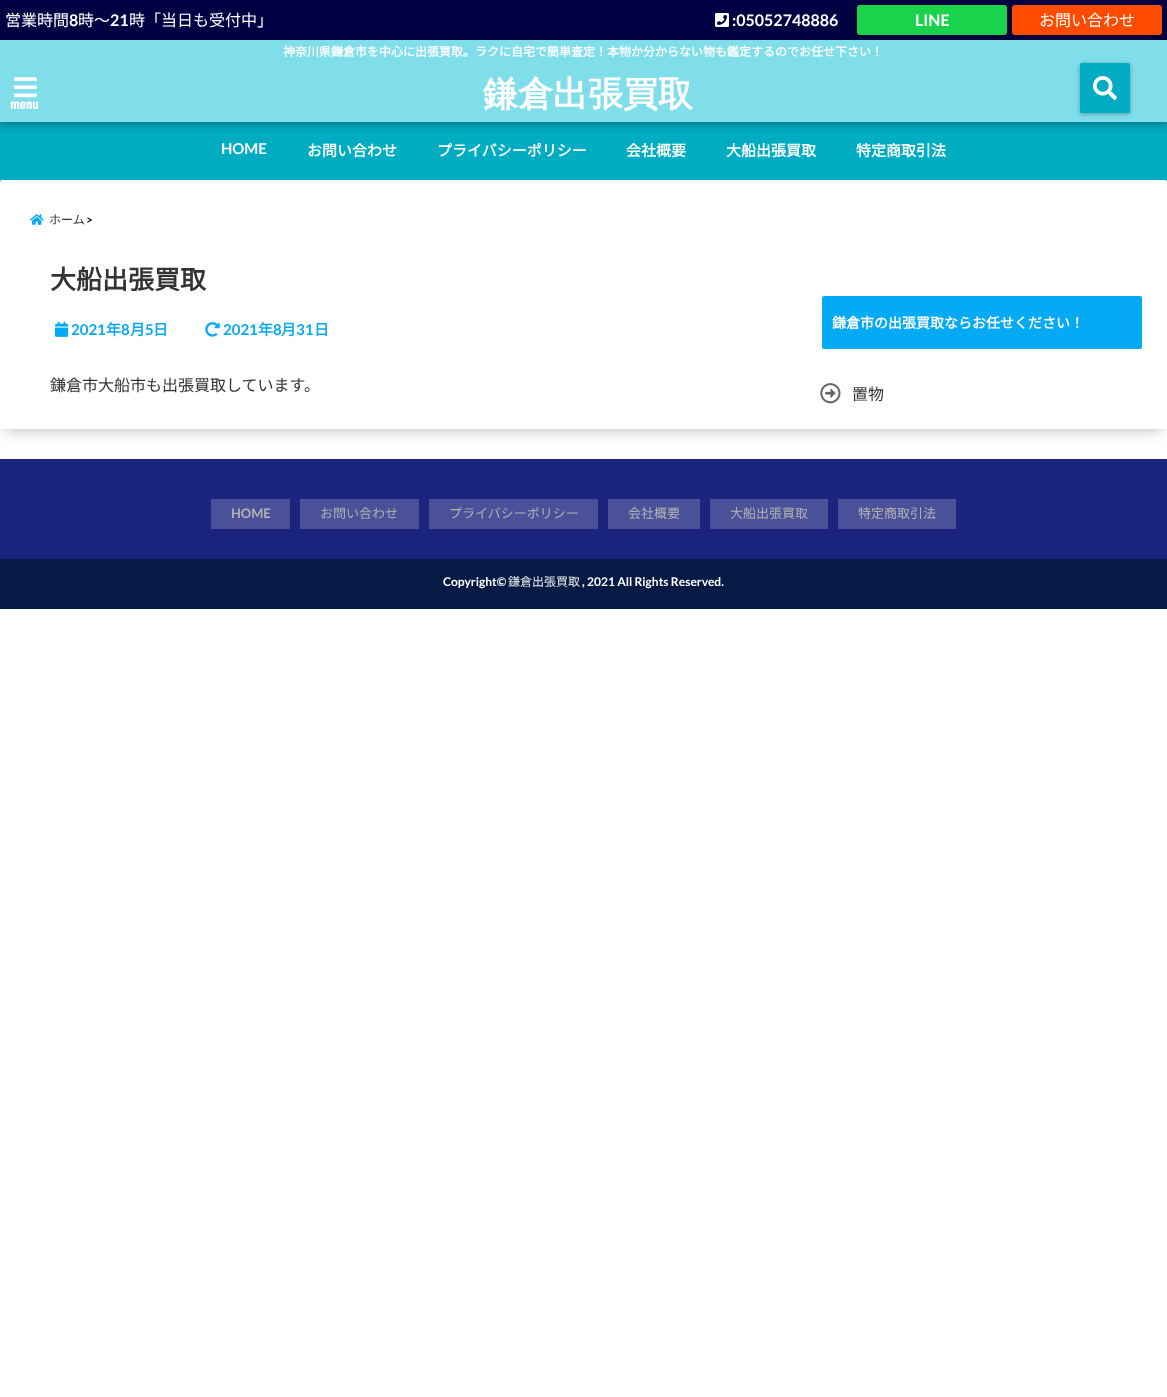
<svg xmlns="http://www.w3.org/2000/svg" width="1167" height="1397">
	<rect width="100%" height="100%" fill="#FFFFFF" />
	<rect x="0" y="0" width="1167" height="40" fill="#000142" />
	<text x="5" y="26" font-family="Noto Sans JP" font-size="16" font-weight="100" fill="#FFFFFF">営業時間</text>
	<text x="69" y="26" font-family="Lato" font-size="16" font-weight="700" fill="#FFFFFF">8</text>
	<text x="78" y="26" font-family="Noto Sans JP" font-size="16" font-weight="100" fill="#FFFFFF">時～</text>
	<text x="110" y="26" font-family="Lato" font-size="16" font-weight="700" fill="#FFFFFF">21</text>
	<text x="129" y="26" font-family="Noto Sans JP" font-size="16" font-weight="100" fill="#FFFFFF">時「当日も受付中」</text>
	<image x="715" y="13" width="14" height="14" href="assets/img1.png" />
	<text x="732" y="26" font-family="Lato" font-size="16" font-weight="700" fill="#FFFFFF">:05052748886</text>
	<rect x="1012" y="6" width="150" height="30" rx="3" fill="#000000" fill-opacity="0.3" filter="blur(2.5px)" />
	<rect x="1012" y="5" width="150" height="30" rx="3" fill="#FF4B00" />
	<rect x="857" y="6" width="150" height="30" rx="3" fill="#000000" fill-opacity="0.3" filter="blur(2.5px)" />
	<rect x="857" y="5" width="150" height="30" rx="3" fill="#19D34C" />
	<text x="915" y="26" font-family="Lato" font-size="16" font-weight="700" fill="#FFFFFF">LINE</text>
	<text x="1039" y="26" font-family="Noto Sans JP" font-size="16" font-weight="100" fill="#FFFFFF">お問い合わせ</text>
	<rect x="0" y="180" width="1167" height="2" fill="#00ACC1" />
	<rect x="5" y="190" width="1157" height="239" fill="#000000" fill-opacity="0.3" filter="blur(7.5px)" />
	<rect x="0" y="122" width="1167" height="58" fill="#00ACC1" />
	<rect x="0" y="43" width="1167" height="82" fill="#000000" fill-opacity="0.3" filter="blur(4px)" />
	<rect x="0" y="40" width="1167" height="82" fill="#80DEEA" />
	<text x="283" y="56" font-family="Noto Sans JP" font-size="12" font-weight="700" fill="#FFFFFF">神奈川県鎌倉市を中心に出張買取。ラクに自宅で簡単査定！本物か分からない物も鑑定するのでお任せ下さい！</text>
	<image x="14" y="77" width="23" height="21" href="assets/img2.png" />
	<text x="10" y="109" font-family="Denk One" font-size="12" font-weight="700" fill="#FFFFFF">menu</text>
	<text x="483" y="106" font-family="WenQuanYi Zen Hei" font-size="35" font-weight="700" fill="#FFFFFF">鎌倉出張買取</text>
	<rect x="1080" y="64" width="50" height="50" rx="1.5" fill="#000000" fill-opacity="0.3" filter="blur(2.5px)" />
	<rect x="1080" y="63" width="50" height="50" rx="1.5" fill="#00ACC1" />
	<image x="1093" y="76" width="24" height="24" href="assets/img3.png" />
	<text x="221" y="154" font-family="Lato" font-size="15" font-weight="700" fill="#FFFFFF">HOME</text>
	<g font-family="Noto Sans JP" font-size="15" font-weight="700" fill="#FFFFFF">
		<text x="307" y="156">お問い合わせ</text>
		<text x="437" y="156">プライバシーポリシー</text>
		<text x="626" y="156">会社概要</text>
		<text x="726" y="156">大船出張買取</text>
		<text x="856" y="156">特定商取引法</text>
	</g>
	<rect x="0" y="180" width="1167" height="249" rx="2" fill="#FFFFFF" />
	<image x="30" y="214" width="14" height="11" href="assets/img4.png" />
	<text x="49" y="224" font-family="Noto Sans JP" font-size="12" font-weight="100" fill="#333333">ホーム</text>
	<text x="86" y="224" font-family="Lato" font-size="12" font-weight="700" fill="#010101">&gt;</text>
	<text x="50" y="289" font-family="Noto Sans JP" font-size="26" font-weight="700" fill="#333333">大船出張買取</text>
	<image x="55" y="321" width="14" height="16" href="assets/img5.png" />
	<text x="71" y="335" font-family="Lato" font-size="15" font-weight="700" fill="#06A9F4">2021</text>
	<text x="106" y="335" font-family="Noto Sans JP" font-size="15" font-weight="700" fill="#06A9F4">年</text>
	<text x="121" y="335" font-family="Lato" font-size="15" font-weight="700" fill="#06A9F4">8</text>
	<text x="130" y="335" font-family="Noto Sans JP" font-size="15" font-weight="700" fill="#06A9F4">月</text>
	<text x="145" y="335" font-family="Lato" font-size="15" font-weight="700" fill="#06A9F4">5</text>
	<text x="153" y="335" font-family="Noto Sans JP" font-size="15" font-weight="700" fill="#06A9F4">日</text>
	<image x="205" y="322" width="15" height="15" href="assets/img6.png" />
	<text x="223" y="335" font-family="Lato" font-size="15" font-weight="700" fill="#06A9F4">2021</text>
	<text x="258" y="335" font-family="Noto Sans JP" font-size="15" font-weight="700" fill="#06A9F4">年</text>
	<text x="273" y="335" font-family="Lato" font-size="15" font-weight="700" fill="#06A9F4">8</text>
	<text x="281" y="335" font-family="Noto Sans JP" font-size="15" font-weight="700" fill="#06A9F4">月</text>
	<text x="296" y="335" font-family="Lato" font-size="15" font-weight="700" fill="#06A9F4">31</text>
	<text x="314" y="335" font-family="Noto Sans JP" font-size="15" font-weight="700" fill="#06A9F4">日</text>
	<text x="50" y="391" font-family="Noto Sans JP" font-size="16" font-weight="100" fill="#333333">鎌倉市大船市も出張買取しています。</text>
	<rect x="822" y="296" width="320" height="53" rx="2" fill="#06A9F4" />
	<text x="832" y="328" font-family="Noto Sans JP" font-size="14" font-weight="700" fill="#FFFFFF">鎌倉市の出張買取ならお任せください！</text>
	<image x="820" y="383" width="21" height="21" href="assets/img7.png" />
	<text x="852" y="400" font-family="Noto Sans JP" font-size="16" font-weight="100" fill="#333333">置物</text>
	<rect x="0" y="459" width="1167" height="100" fill="#1A237E" />
	<rect x="211" y="499" width="79" height="30" fill="#4A5199" />
	<text x="231" y="518" font-family="Lato" font-size="13" font-weight="700" fill="#B3B3B3">HOME</text>
	<rect x="300" y="499" width="119" height="30" fill="#4A5199" />
	<text x="320" y="518" font-family="Noto Sans JP" font-size="13" font-weight="100" fill="#B3B3B3">お問い合わせ</text>
	<rect x="429" y="499" width="169" height="30" fill="#4A5199" />
	<text x="449" y="518" font-family="Noto Sans JP" font-size="13" font-weight="100" fill="#B3B3B3">プライバシーポリシー</text>
	<rect x="608" y="499" width="92" height="30" fill="#4A5199" />
	<text x="628" y="518" font-family="Noto Sans JP" font-size="13" font-weight="100" fill="#B3B3B3">会社概要</text>
	<rect x="710" y="499" width="118" height="30" fill="#4A5199" />
	<text x="730" y="518" font-family="Noto Sans JP" font-size="13" font-weight="100" fill="#B3B3B3">大船出張買取</text>
	<rect x="838" y="499" width="118" height="30" fill="#4A5199" />
	<text x="858" y="518" font-family="Noto Sans JP" font-size="13" font-weight="100" fill="#B3B3B3">特定商取引法</text>
	<rect x="0" y="559" width="1167" height="50" fill="#051A44" />
	<text x="443" y="586" font-family="Lato" font-size="12" font-weight="700" fill="#FFFFFF">Copyright©</text>
	<text x="508" y="586" font-family="Noto Sans JP" font-size="12" font-weight="100" fill="#EAEAEA">鎌倉出張買取</text>
	<text x="582" y="586" font-family="Lato" font-size="12" font-weight="700" fill="#FFFFFF">, 2021 All Rights Reserved.</text>
</svg>
